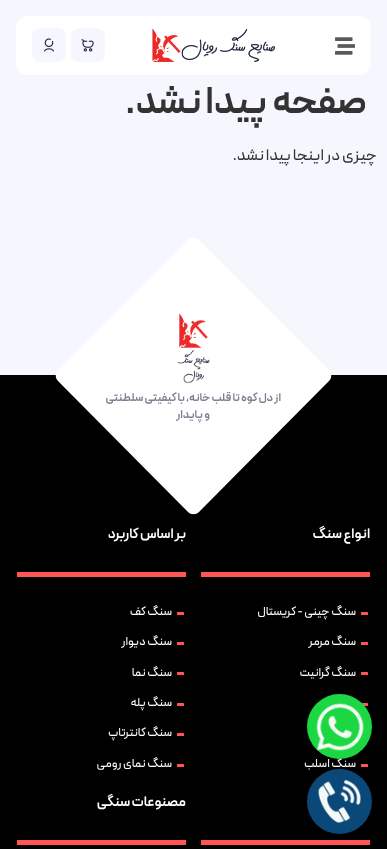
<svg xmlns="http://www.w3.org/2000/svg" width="387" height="849">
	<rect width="100%" height="100%" fill="#F6F7FE" />
	<rect x="16" y="16" width="355" height="59" rx="12" fill="#FFFFFF" />
	<image x="335" y="37" width="20" height="18" href="assets/img1.png" />
	<image x="152" y="28" width="123" height="34" href="assets/img2.png" />
	<rect x="71" y="28" width="34" height="34" rx="8" fill="#F6F7FE" />
	<image x="81" y="39" width="13" height="13" href="assets/img3.png" />
	<rect x="32" y="28" width="34" height="34" rx="8" fill="#F6F7FE" />
	<image x="44" y="38" width="10" height="14" href="assets/img4.png" />
	<text x="367" y="113" font-family="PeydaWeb" font-size="38" font-weight="700" direction="rtl" fill="#333333">صفحه پیدا نشد.</text>
	<text x="377" y="160" font-family="PeydaWeb" font-size="16" font-weight="500" direction="rtl" fill="#333333">چیزی در اینجا پیدا نشد.</text>
	<rect x="0" y="375" width="387" height="474" fill="#000000" />
	<path d="M199 240L329 370C332 373 332 378 329 381L199 512C196 515 191 515 188 512L58 381C55 378 55 373 58 370L188 240C191 237 196 237 199 240Z" fill="#FFFFFF" />
	<image x="177" y="313" width="33" height="71" href="assets/img5.png" />
	<g font-family="PeydaWeb" font-size="11.5" font-weight="700" direction="rtl" fill="#7D7F91">
		<text x="281" y="401">از دل کوه تا قلب خانه، با کیفیتی سلطنتی</text>
		<text x="210" y="418">و پایدار</text>
	</g>
	<text x="370" y="538" font-family="PeydaWeb" font-size="14" font-weight="700" direction="rtl" fill="#FFFFFF">انواع سنگ</text>
	<rect x="201" y="572" width="169" height="5" fill="#FF5555" />
	<rect x="361" y="612" width="7" height="3" rx="0.5" fill="#FF5555" />
	<text x="356" y="615" font-family="PeydaWeb" font-size="12" font-weight="500" direction="rtl" fill="#FFFFFF">سنگ چینی - کریستال</text>
	<rect x="361" y="642" width="7" height="3" rx="0.5" fill="#FF5555" />
	<text x="356" y="645" font-family="PeydaWeb" font-size="12" font-weight="500" direction="rtl" fill="#FFFFFF">سنگ مرمر</text>
	<rect x="361" y="672" width="7" height="3" rx="0.5" fill="#FF5555" />
	<text x="356" y="676" font-family="PeydaWeb" font-size="12" font-weight="500" direction="rtl" fill="#FFFFFF">سنگ گرانیت</text>
	<rect x="361" y="703" width="7" height="3" rx="0.5" fill="#FF5555" />
	<rect x="361" y="764" width="7" height="3" rx="0.5" fill="#FF5555" />
	<text x="356" y="767" font-family="PeydaWeb" font-size="12" font-weight="500" direction="rtl" fill="#FFFFFF">سنگ اسلب</text>
	<text x="186" y="538" font-family="PeydaWeb" font-size="14" font-weight="700" direction="rtl" fill="#FFFFFF">بر اساس کاربرد</text>
	<rect x="17" y="572" width="169" height="5" fill="#FF5555" />
	<rect x="177" y="612" width="7" height="3" rx="0.5" fill="#FF5555" />
	<text x="172" y="615" font-family="PeydaWeb" font-size="12" font-weight="500" direction="rtl" fill="#FFFFFF">سنگ کف</text>
	<rect x="177" y="642" width="7" height="3" rx="0.5" fill="#FF5555" />
	<text x="172" y="645" font-family="PeydaWeb" font-size="12" font-weight="500" direction="rtl" fill="#FFFFFF">سنگ دیوار</text>
	<rect x="177" y="672" width="7" height="3" rx="0.5" fill="#FF5555" />
	<text x="172" y="676" font-family="PeydaWeb" font-size="12" font-weight="500" direction="rtl" fill="#FFFFFF">سنگ نما</text>
	<rect x="177" y="703" width="7" height="3" rx="0.5" fill="#FF5555" />
	<text x="172" y="706" font-family="PeydaWeb" font-size="12" font-weight="500" direction="rtl" fill="#FFFFFF">سنگ پله</text>
	<rect x="177" y="733" width="7" height="3" rx="0.5" fill="#FF5555" />
	<text x="172" y="736" font-family="PeydaWeb" font-size="12" font-weight="500" direction="rtl" fill="#FFFFFF">سنگ کانترتاپ</text>
	<rect x="177" y="764" width="7" height="3" rx="0.5" fill="#FF5555" />
	<text x="172" y="767" font-family="PeydaWeb" font-size="12" font-weight="500" direction="rtl" fill="#FFFFFF">سنگ نمای رومی</text>
	<text x="186" y="806" font-family="PeydaWeb" font-size="14" font-weight="700" direction="rtl" fill="#FFFFFF">مصنوعات سنگی</text>
	<rect x="17" y="840" width="169" height="5" fill="#FF5555" />
	<rect x="201" y="840" width="169" height="5" fill="#FF5555" />
	<circle cx="339.5" cy="726.5" r="32.5" fill="#1BD741" />
	<image x="316" y="703" width="48" height="48" href="assets/img6.png" />
	<circle cx="339.5" cy="801.5" r="32.5" fill="#0A4879" />
	<image x="318" y="780" width="43" height="43" href="assets/img7.png" />
</svg>
